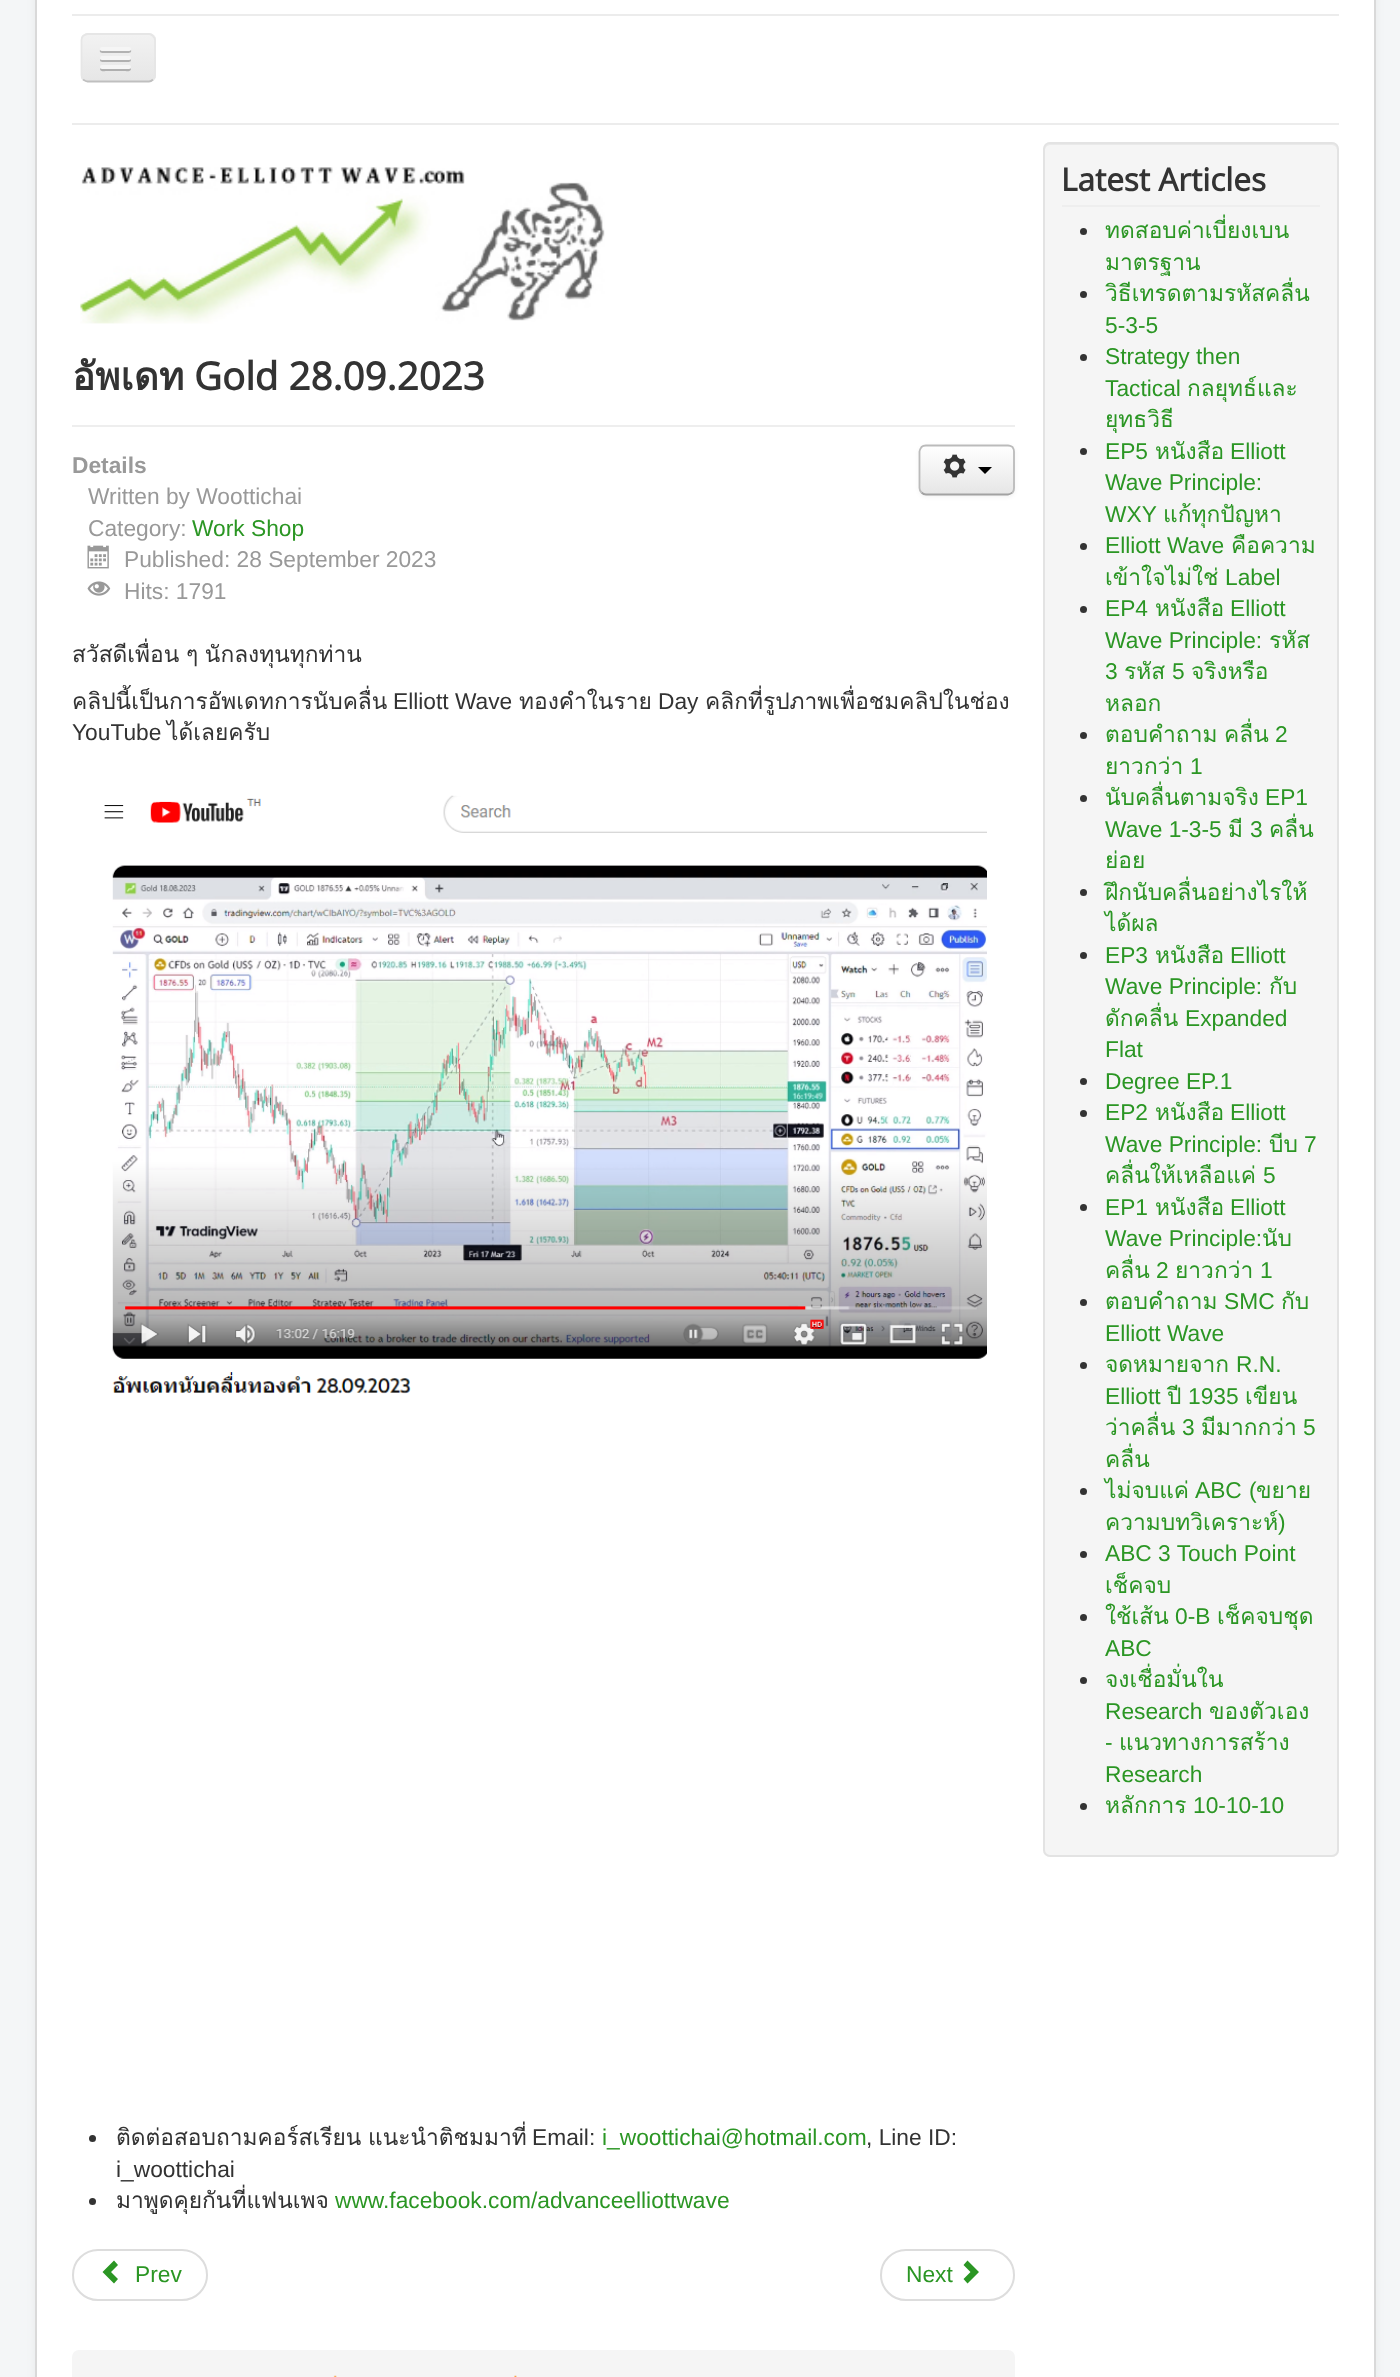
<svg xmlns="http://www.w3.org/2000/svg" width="1400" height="2377">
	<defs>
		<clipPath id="clip1"><rect x="81" y="33" width="75" height="49" rx="7" /></clipPath>
		<linearGradient id="g1" gradientUnits="userSpaceOnUse" x1="118" y1="35" x2="118" y2="81"><stop offset="0" stop-color="#F2F2F2" /><stop offset="1" stop-color="#E6E6E6" /></linearGradient>
		<clipPath id="clip2"><rect x="919" y="445" width="96" height="50" rx="7" /></clipPath>
		<linearGradient id="g2" gradientUnits="userSpaceOnUse" x1="967" y1="446" x2="967" y2="494"><stop offset="0" stop-color="#FFFFFF" /><stop offset="1" stop-color="#E6E6E6" /></linearGradient>
	</defs>
	<rect width="100%" height="100%" fill="#F4F6F7" />
	<rect x="35" y="-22" width="1341" height="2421" rx="7" fill="#000000" fill-opacity="0.05" filter="blur(5px)" />
	<rect x="36" y="-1" width="1339" height="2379" fill="#FFFFFF" stroke="#D9D9D9" stroke-width="2" />
	<rect x="72" y="14" width="1267" height="2" fill="#ECECEC" />
	<rect x="72" y="123" width="1267" height="2" fill="#ECECEC" />
	<rect x="81" y="33" width="75" height="49" rx="7" fill="#EDEDED" />
	<g clip-path="url(#clip1)">
		<rect x="81" y="35" width="75" height="46" fill="url(#g1)" />
	</g>
	<path d="M153 79.5C152 80.5 150.5 81.5 149 81.5H87.5C86 81.5 84.5 80.5 83 79.5" fill="none" stroke="#BFBFBF" stroke-width="1.8" />
	<path d="M83 79.5C82 78.5 81.5 77 81.5 75V40C81.5 38.5 82 37 83 36C84.5 35 86 34 87.5 34H149C150.5 34 152 35 153 36C154 37 155 38.5 155 40V75C155 77 154 78.5 153 79.5" fill="none" stroke="#E6E6E6" stroke-width="1.8" />
	<path d="M100 50C98.5 54 105.5 53 106.5 53H124.5C125.5 53 132.5 54 131 50L129.5 50.5H101.5Z" fill="#B2B2B2" />
	<rect x="100" y="47" width="31" height="4" rx="2" fill="#F5F5F5" />
	<path d="M100.5 59C98 63 106 62 106.5 62H124.5C125 62 133 63 130.5 59L129.5 59.5H101.5Z" fill="#B0B0B0" />
	<rect x="100" y="56" width="31" height="4" rx="2" fill="#F5F5F5" />
	<path d="M100.5 68L100 69.5C100.5 72 105.5 71 106.5 71H124.5C125.5 71 130.5 72 131 69.5L130.5 68C129.5 68.5 101.5 68.5 100.5 68Z" fill="#AFAFAF" />
	<rect x="100" y="65" width="31" height="4" rx="2" fill="#F5F5F5" />
	<image x="80" y="167" width="525" height="157" href="assets/img1.png" />
	<rect x="72" y="425" width="943" height="2" fill="#EEEEEE" />
	<text x="72" y="390" font-family="Loma" font-size="38.5" font-weight="700" fill="#333333">อัพเดท</text>
	<text x="194" y="390" font-family="Open Sans" font-size="38.5" font-weight="700" fill="#333333">Gold 28.09.2023</text>
	<text x="72" y="473" font-family="Liberation Sans" font-size="22.75" font-weight="700" fill="#999999">Details</text>
	<g font-family="Liberation Sans" font-size="22.75" fill="#999999">
		<text x="88" y="504">Written by Woottichai</text>
		<text x="88" y="536">Category:</text>
	</g>
	<text x="192" y="536" font-family="Liberation Sans" font-size="22.75" fill="#2B9624">Work Shop</text>
	<image x="87" y="545" width="22" height="24" href="assets/img2.png" />
	<text x="124" y="567" font-family="Liberation Sans" font-size="22.75" fill="#999999">Published: 28 September 2023</text>
	<image x="87" y="581" width="24" height="15" href="assets/img3.png" />
	<text x="124" y="599" font-family="Liberation Sans" font-size="22.75" fill="#999999">Hits: 1791</text>
	<rect x="919" y="446" width="96" height="51" rx="7" fill="#000000" fill-opacity="0.05" filter="blur(2px)" />
	<g clip-path="url(#clip2)">
		<rect x="919" y="446" width="96" height="48" fill="url(#g2)" />
	</g>
	<path d="M1012.5 492.5C1011 493.5 1009.5 494.5 1008 494.5H926C924 494.5 922.5 493.5 921.5 492.5" fill="none" stroke="#A2A2A2" stroke-width="1.8" />
	<path d="M921.5 492.5C920.5 491.5 919.5 490 919.5 488V451.5C919.5 450 920.5 448.5 921.5 447C922.5 446 924 445.5 926 445.5H1008C1009.5 445.5 1011 446 1012.5 447C1013.5 448.5 1014 450 1014 451.5V488C1014 490 1013.5 491.5 1012.5 492.5" fill="none" stroke="#BBBBBB" stroke-width="1.8" />
	<image x="943" y="454" width="23" height="24" href="assets/img4.png" />
	<path d="M978 467H992L985 474Z" fill="#000000" />
	<g font-family="Loma" font-size="22.75" fill="#333333">
		<text x="72" y="662" word-spacing="-1">สวัสดีเพื่อน ๆ นักลงทุนทุกท่าน</text>
		<text x="72" y="709">คลิปนี้เป็นการอัพเดทการนับคลื่น</text>
	</g>
	<text x="393" y="709" font-family="Liberation Sans" font-size="22.75" fill="#333333">Elliott Wave</text>
	<text x="519" y="709" font-family="Loma" font-size="22.75" fill="#333333">ทองคำในราย</text>
	<text x="658" y="709" font-family="Liberation Sans" font-size="22.75" fill="#333333">Day</text>
	<text x="705" y="709" font-family="Loma" font-size="22.75" fill="#333333">คลิกที่รูปภาพเพื่อชมคลิปในช่อง</text>
	<text x="72" y="740" font-family="Liberation Sans" font-size="22.75" fill="#333333">YouTube</text>
	<text x="167" y="740" font-family="Loma" font-size="22.75" fill="#333333">ได้เลยครับ</text>
	<image x="104" y="795" width="883" height="599" href="assets/img5.png" />
	<circle cx="92.5" cy="2138.5" r="3.5" fill="#333333" />
	<text x="116" y="2145" word-spacing="-1" font-family="Loma" font-size="22.75" fill="#333333">ติดต่อสอบถามคอร์สเรียน แนะนำติชมมาที่</text>
	<text x="532" y="2145" font-family="Liberation Sans" font-size="22.75" fill="#333333">Email:</text>
	<text x="602" y="2145" font-family="Liberation Sans" font-size="22.75" fill="#2B9624">i_woottichai@hotmail.com</text>
	<g font-family="Liberation Sans" font-size="22.75" fill="#333333">
		<text x="866" y="2145">, Line ID:</text>
		<text x="116" y="2177">i_woottichai</text>
	</g>
	<circle cx="92.5" cy="2201.5" r="3.5" fill="#333333" />
	<text x="116" y="2208" font-family="Loma" font-size="22.75" fill="#333333">มาพูดคุยกันที่แฟนเพจ</text>
	<text x="335" y="2208" font-family="Liberation Sans" font-size="22.75" fill="#2B9624">www.facebook.com/advanceelliottwave</text>
	<rect x="73" y="2250" width="134" height="50" rx="25" fill="none" stroke="#DDDDDD" stroke-width="2" />
	<path d="M114 2283.5L102.5 2272L114 2260.5L118 2265L111 2272L118 2279Z" fill="#2B9624" />
	<text x="135" y="2282" font-family="Liberation Sans" font-size="22.75" fill="#2B9624">Prev</text>
	<rect x="881" y="2250" width="133" height="50" rx="25" fill="none" stroke="#DDDDDD" stroke-width="2" />
	<text x="906" y="2282" font-family="Liberation Sans" font-size="22.75" fill="#2B9624">Next</text>
	<path d="M967.5 2260.5L979 2272L967.5 2283.5L963.5 2279L970.5 2272L963.5 2265Z" fill="#2B9624" />
	<rect x="72" y="2350" width="943" height="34" rx="7" fill="#F5F5F5" />
	<image x="333" y="2375" width="4" height="2" href="assets/img6.png" />
	<image x="514" y="2375" width="3" height="2" href="assets/img7.png" />
	<rect x="1043" y="142" width="296" height="1715" rx="7" fill="#F5F5F5" />
	<path d="M1050 145H1332C1335 145 1337 148 1337 150V149C1337 146 1335 144 1332 144H1050C1047 144 1045 146 1045 149V150C1045 148 1047 145 1050 145Z" fill="#E9E9E9" />
	<rect x="1044" y="143" width="294" height="1713" rx="6" fill="none" stroke="#E3E3E3" stroke-width="2" />
	<rect x="1062" y="205" width="258" height="2" fill="#EEEEEE" />
	<text x="1061" y="191" font-family="Open Sans" font-size="31.5" font-weight="700" fill="#333333">Latest Articles</text>
	<circle cx="1083.5" cy="231.5" r="3.5" fill="#333333" />
	<g font-family="Loma" font-size="22.75" fill="#2B9624">
		<text x="1105" y="238">ทดสอบค่าเบี่ยงเบน</text>
		<text x="1105" y="270">มาตรฐาน</text>
	</g>
	<circle cx="1083.5" cy="294.5" r="3.5" fill="#333333" />
	<text x="1105" y="301" font-family="Loma" font-size="22.75" fill="#2B9624">วิธีเทรดตามรหัสคลื่น</text>
	<text x="1105" y="333" font-family="Liberation Sans" font-size="22.75" fill="#2B9624">5-3-5</text>
	<circle cx="1083.5" cy="357.5" r="3.5" fill="#333333" />
	<g font-family="Liberation Sans" font-size="22.75" fill="#2B9624">
		<text x="1105" y="364">Strategy then</text>
		<text x="1105" y="396">Tactical</text>
	</g>
	<g font-family="Loma" font-size="22.75" fill="#2B9624">
		<text x="1187" y="396">กลยุทธ์และ</text>
		<text x="1105" y="427">ยุทธวิธี</text>
	</g>
	<circle cx="1083.5" cy="451.5" r="3.5" fill="#333333" />
	<text x="1105" y="459" font-family="Liberation Sans" font-size="22.75" fill="#2B9624">EP5</text>
	<text x="1155" y="459" font-family="Loma" font-size="22.75" fill="#2B9624">หนังสือ</text>
	<g font-family="Liberation Sans" font-size="22.75" fill="#2B9624">
		<text x="1230" y="459">Elliott</text>
		<text x="1105" y="490">Wave Principle:</text>
		<text x="1105" y="522">WXY</text>
	</g>
	<text x="1163" y="522" font-family="Loma" font-size="22.75" fill="#2B9624">แก้ทุกปัญหา</text>
	<circle cx="1083.5" cy="546.5" r="3.5" fill="#333333" />
	<text x="1105" y="553" font-family="Liberation Sans" font-size="22.75" fill="#2B9624">Elliott Wave</text>
	<g font-family="Loma" font-size="22.75" fill="#2B9624">
		<text x="1231" y="553">คือความ</text>
		<text x="1105" y="585">เข้าใจไม่ใช่</text>
	</g>
	<text x="1225" y="585" font-family="Liberation Sans" font-size="22.75" fill="#2B9624">Label</text>
	<circle cx="1083.5" cy="609.5" r="3.5" fill="#333333" />
	<text x="1105" y="616" font-family="Liberation Sans" font-size="22.75" fill="#2B9624">EP4</text>
	<text x="1155" y="616" font-family="Loma" font-size="22.75" fill="#2B9624">หนังสือ</text>
	<g font-family="Liberation Sans" font-size="22.75" fill="#2B9624">
		<text x="1230" y="616">Elliott</text>
		<text x="1105" y="648">Wave Principle:</text>
	</g>
	<text x="1269" y="648" font-family="Loma" font-size="22.75" fill="#2B9624">รหัส</text>
	<text x="1105" y="679" font-family="Liberation Sans" font-size="22.75" fill="#2B9624">3</text>
	<text x="1124" y="679" font-family="Loma" font-size="22.75" fill="#2B9624">รหัส</text>
	<text x="1172" y="679" font-family="Liberation Sans" font-size="22.75" fill="#2B9624">5</text>
	<g font-family="Loma" font-size="22.75" fill="#2B9624">
		<text x="1191" y="679">จริงหรือ</text>
		<text x="1105" y="711">หลอก</text>
	</g>
	<circle cx="1083.5" cy="735.5" r="3.5" fill="#333333" />
	<text x="1105" y="742" word-spacing="-1" font-family="Loma" font-size="22.75" fill="#2B9624">ตอบคำถาม คลื่น</text>
	<text x="1275" y="742" font-family="Liberation Sans" font-size="22.75" fill="#2B9624">2</text>
	<text x="1105" y="774" font-family="Loma" font-size="22.75" fill="#2B9624">ยาวกว่า</text>
	<text x="1190" y="774" font-family="Liberation Sans" font-size="22.75" fill="#2B9624">1</text>
	<circle cx="1083.5" cy="798.5" r="3.5" fill="#333333" />
	<text x="1105" y="805" font-family="Loma" font-size="22.75" fill="#2B9624">นับคลื่นตามจริง</text>
	<g font-family="Liberation Sans" font-size="22.75" fill="#2B9624">
		<text x="1265" y="805">EP1</text>
		<text x="1105" y="837">Wave 1-3-5</text>
	</g>
	<text x="1228" y="837" font-family="Loma" font-size="22.75" fill="#2B9624">มี</text>
	<text x="1250" y="837" font-family="Liberation Sans" font-size="22.75" fill="#2B9624">3</text>
	<g font-family="Loma" font-size="22.75" fill="#2B9624">
		<text x="1269" y="837">คลื่น</text>
		<text x="1105" y="868">ย่อย</text>
	</g>
	<circle cx="1083.5" cy="892.5" r="3.5" fill="#333333" />
	<g font-family="Loma" font-size="22.75" fill="#2B9624">
		<text x="1105" y="900">ฝึกนับคลื่นอย่างไรให้</text>
		<text x="1105" y="931">ได้ผล</text>
	</g>
	<circle cx="1083.5" cy="955.5" r="3.5" fill="#333333" />
	<text x="1105" y="963" font-family="Liberation Sans" font-size="22.75" fill="#2B9624">EP3</text>
	<text x="1155" y="963" font-family="Loma" font-size="22.75" fill="#2B9624">หนังสือ</text>
	<g font-family="Liberation Sans" font-size="22.75" fill="#2B9624">
		<text x="1230" y="963">Elliott</text>
		<text x="1105" y="994">Wave Principle:</text>
	</g>
	<g font-family="Loma" font-size="22.75" fill="#2B9624">
		<text x="1269" y="994">กับ</text>
		<text x="1105" y="1026">ดักคลื่น</text>
	</g>
	<g font-family="Liberation Sans" font-size="22.75" fill="#2B9624">
		<text x="1185" y="1026">Expanded</text>
		<text x="1105" y="1057">Flat</text>
	</g>
	<circle cx="1083.5" cy="1081.5" r="3.5" fill="#333333" />
	<text x="1105" y="1089" font-family="Liberation Sans" font-size="22.75" fill="#2B9624">Degree EP.1</text>
	<circle cx="1083.5" cy="1113.5" r="3.5" fill="#333333" />
	<text x="1105" y="1120" font-family="Liberation Sans" font-size="22.75" fill="#2B9624">EP2</text>
	<text x="1155" y="1120" font-family="Loma" font-size="22.75" fill="#2B9624">หนังสือ</text>
	<g font-family="Liberation Sans" font-size="22.75" fill="#2B9624">
		<text x="1230" y="1120">Elliott</text>
		<text x="1105" y="1152">Wave Principle:</text>
	</g>
	<text x="1269" y="1152" font-family="Loma" font-size="22.75" fill="#2B9624">บีบ</text>
	<text x="1304" y="1152" font-family="Liberation Sans" font-size="22.75" fill="#2B9624">7</text>
	<text x="1105" y="1183" font-family="Loma" font-size="22.75" fill="#2B9624">คลื่นให้เหลือแค่</text>
	<text x="1263" y="1183" font-family="Liberation Sans" font-size="22.75" fill="#2B9624">5</text>
	<circle cx="1083.5" cy="1207.5" r="3.5" fill="#333333" />
	<text x="1105" y="1215" font-family="Liberation Sans" font-size="22.75" fill="#2B9624">EP1</text>
	<text x="1155" y="1215" font-family="Loma" font-size="22.75" fill="#2B9624">หนังสือ</text>
	<g font-family="Liberation Sans" font-size="22.75" fill="#2B9624">
		<text x="1230" y="1215">Elliott</text>
		<text x="1105" y="1246">Wave Principle:</text>
	</g>
	<g font-family="Loma" font-size="22.75" fill="#2B9624">
		<text x="1262" y="1246">นับ</text>
		<text x="1105" y="1278">คลื่น</text>
	</g>
	<text x="1156" y="1278" font-family="Liberation Sans" font-size="22.75" fill="#2B9624">2</text>
	<text x="1175" y="1278" font-family="Loma" font-size="22.75" fill="#2B9624">ยาวกว่า</text>
	<text x="1260" y="1278" font-family="Liberation Sans" font-size="22.75" fill="#2B9624">1</text>
	<circle cx="1083.5" cy="1302.5" r="3.5" fill="#333333" />
	<text x="1105" y="1309" font-family="Loma" font-size="22.75" fill="#2B9624">ตอบคำถาม</text>
	<text x="1224" y="1309" font-family="Liberation Sans" font-size="22.75" fill="#2B9624">SMC</text>
	<text x="1281" y="1309" font-family="Loma" font-size="22.75" fill="#2B9624">กับ</text>
	<text x="1105" y="1341" font-family="Liberation Sans" font-size="22.75" fill="#2B9624">Elliott Wave</text>
	<circle cx="1083.5" cy="1365.5" r="3.5" fill="#333333" />
	<text x="1105" y="1372" font-family="Loma" font-size="22.75" fill="#2B9624">จดหมายจาก</text>
	<g font-family="Liberation Sans" font-size="22.75" fill="#2B9624">
		<text x="1236" y="1372">R.N.</text>
		<text x="1105" y="1404">Elliott</text>
	</g>
	<text x="1167" y="1404" font-family="Loma" font-size="22.75" fill="#2B9624">ปี</text>
	<text x="1188" y="1404" font-family="Liberation Sans" font-size="22.75" fill="#2B9624">1935</text>
	<g font-family="Loma" font-size="22.75" fill="#2B9624">
		<text x="1245" y="1404">เขียน</text>
		<text x="1105" y="1435">ว่าคลื่น</text>
	</g>
	<text x="1182" y="1435" font-family="Liberation Sans" font-size="22.75" fill="#2B9624">3</text>
	<text x="1201" y="1435" font-family="Loma" font-size="22.75" fill="#2B9624">มีมากกว่า</text>
	<text x="1303" y="1435" font-family="Liberation Sans" font-size="22.75" fill="#2B9624">5</text>
	<text x="1105" y="1467" font-family="Loma" font-size="22.75" fill="#2B9624">คลื่น</text>
	<circle cx="1083.5" cy="1491.5" r="3.5" fill="#333333" />
	<text x="1105" y="1498" font-family="Loma" font-size="22.75" fill="#2B9624">ไม่จบแค่</text>
	<text x="1195" y="1498" word-spacing="1" font-family="Liberation Sans" font-size="22.75" fill="#2B9624">ABC (</text>
	<g font-family="Loma" font-size="22.75" fill="#2B9624">
		<text x="1256" y="1498">ขยาย</text>
		<text x="1105" y="1530">ความบทวิเคราะห์</text>
	</g>
	<text x="1278" y="1530" font-family="Liberation Sans" font-size="22.75" fill="#2B9624">)</text>
	<circle cx="1083.5" cy="1554.5" r="3.5" fill="#333333" />
	<text x="1105" y="1561" font-family="Liberation Sans" font-size="22.75" fill="#2B9624">ABC 3 Touch Point</text>
	<text x="1105" y="1593" font-family="Loma" font-size="22.75" fill="#2B9624">เช็คจบ</text>
	<circle cx="1083.5" cy="1617.5" r="3.5" fill="#333333" />
	<text x="1105" y="1624" font-family="Loma" font-size="22.75" fill="#2B9624">ใช้เส้น</text>
	<text x="1175" y="1624" font-family="Liberation Sans" font-size="22.75" fill="#2B9624">0-B</text>
	<text x="1217" y="1624" font-family="Loma" font-size="22.75" fill="#2B9624">เช็คจบชุด</text>
	<text x="1105" y="1656" font-family="Liberation Sans" font-size="22.75" fill="#2B9624">ABC</text>
	<circle cx="1083.5" cy="1680.5" r="3.5" fill="#333333" />
	<text x="1105" y="1687" font-family="Loma" font-size="22.75" fill="#2B9624">จงเชื่อมั่นใน</text>
	<text x="1105" y="1719" font-family="Liberation Sans" font-size="22.75" fill="#2B9624">Research</text>
	<text x="1209" y="1719" font-family="Loma" font-size="22.75" fill="#2B9624">ของตัวเอง</text>
	<text x="1105" y="1750" font-family="Liberation Sans" font-size="22.75" fill="#2B9624">-</text>
	<text x="1119" y="1750" font-family="Loma" font-size="22.75" fill="#2B9624">แนวทางการสร้าง</text>
	<text x="1105" y="1782" font-family="Liberation Sans" font-size="22.75" fill="#2B9624">Research</text>
	<circle cx="1083.5" cy="1806.5" r="3.5" fill="#333333" />
	<text x="1105" y="1813" font-family="Loma" font-size="22.75" fill="#2B9624">หลักการ</text>
	<text x="1193" y="1813" font-family="Liberation Sans" font-size="22.75" fill="#2B9624">10-10-10</text>
</svg>
